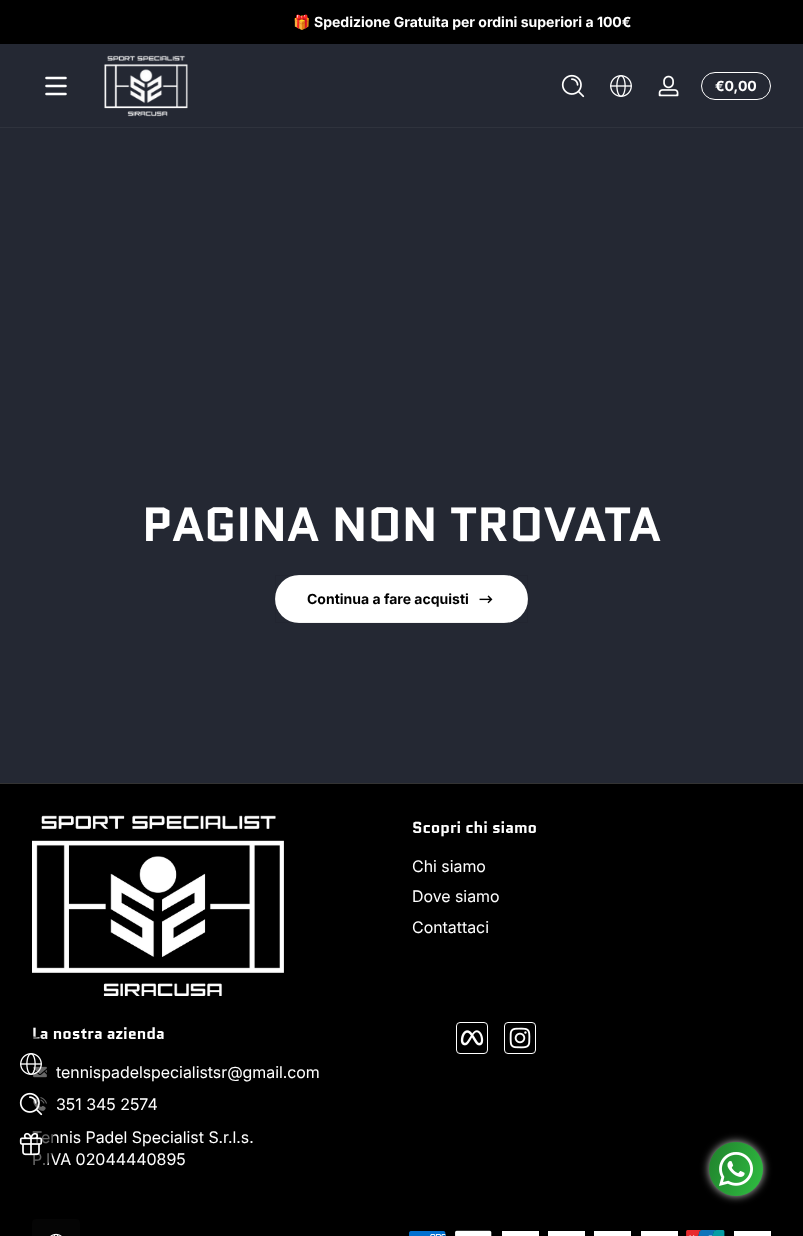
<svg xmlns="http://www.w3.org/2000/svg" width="803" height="1236">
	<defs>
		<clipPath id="clip1"><path d="M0 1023H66V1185H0ZM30.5 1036C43 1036 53 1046 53 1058.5V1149.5C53 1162 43 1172 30.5 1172C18 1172 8 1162 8 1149.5V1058.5C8 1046 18 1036 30.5 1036Z" clip-rule="evenodd" /></clipPath>
		<linearGradient id="g1" gradientUnits="userSpaceOnUse" x1="703" y1="1156" x2="769" y2="1182"><stop offset="0" stop-color="#20802C" /><stop offset="0" stop-color="#20802C" /><stop offset="1" stop-color="#30BF42" /></linearGradient>
	</defs>
	<rect width="100%" height="100%" fill="#242833" />
	<rect x="0" y="0" width="803" height="44" fill="#000000" />
	<text x="293" y="27" font-family="Noto Color Emoji" font-size="14" font-weight="700" fill="#FFFFFF">🎁</text>
	<text x="314" y="27" font-family="Inter" font-size="14" font-weight="700" fill="#FFFFFF">Spedizione Gratuita per ordini superiori a 100€</text>
	<path d="M46.5 78H65.5M46.5 86H65.5M46.5 94H65.5" fill="none" stroke="#FFFFFF" stroke-width="2.6" stroke-linecap="round" />
	<image x="104" y="55" width="84" height="62" href="assets/img1.png" />
	<image x="561" y="74" width="24" height="24" href="assets/img2.png" />
	<image x="610" y="75" width="22" height="22" href="assets/img3.png" />
	<image x="658" y="75" width="21" height="22" href="assets/img4.png" />
	<rect x="701.5" y="72.5" width="69" height="27" rx="13.5" fill="none" stroke="#FFFFFF" />
	<text x="715" y="91" font-family="Inter" font-size="14" font-weight="700" fill="#FFFFFF">€0,00</text>
	<rect x="0" y="127" width="803" height="1" fill="#2F333D" />
	<text x="142" y="541" font-family="Quantico" font-size="48" font-weight="700" fill="#FFFFFF">PAGINA NON TROVATA</text>
	<rect x="275" y="575" width="253" height="48" rx="24" fill="#FFFFFF" />
	<image x="479" y="595" width="14" height="9" href="assets/img5.png" />
	<rect x="275.5" y="575.5" width="252" height="47" fill="none" stroke="#000000" stroke-opacity="0.05" />
	<text x="307" y="604" font-family="Inter" font-size="14" font-weight="700" fill="#000000">Continua a fare acquisti</text>
	<rect x="0" y="784" width="803" height="452" fill="#000000" />
	<rect x="0" y="783" width="803" height="1" fill="#333333" />
	<image x="32" y="815" width="252" height="181" href="assets/img6.png" />
	<text x="412" y="833" font-family="Quantico" font-size="16" font-weight="700" fill="#FFFFFF">Scopri chi siamo</text>
	<g font-family="Inter" font-size="16" fill="#FFFFFF">
		<text x="412" y="872">Chi siamo</text>
		<text x="412" y="902">Dove siamo</text>
		<text x="412" y="933">Contattaci</text>
	</g>
	<text x="32" y="1039" font-family="Quantico" font-size="16" font-weight="700" fill="#FFFFFF">La nostra azienda</text>
	<image x="33" y="1066" width="14" height="12" href="assets/img7.png" />
	<text x="56" y="1078" font-family="Inter" font-size="16" fill="#FFFFFF">tennispadelspecialistsr@gmail.com</text>
	<image x="33" y="1097" width="14" height="14" href="assets/img8.png" />
	<g font-family="Inter" font-size="16" fill="#FFFFFF">
		<text x="56" y="1110">351 345 2574</text>
		<text x="32" y="1143">Tennis Padel Specialist S.r.l.s.</text>
		<text x="32" y="1165">P.IVA 02044440895</text>
	</g>
	<image x="460" y="1030" width="24" height="16" href="assets/img9.png" />
	<rect x="456.5" y="1022.5" width="31" height="31" rx="3.5" fill="none" stroke="#FFFFFF" />
	<image x="509" y="1027" width="22" height="22" href="assets/img10.png" />
	<rect x="504.5" y="1022.5" width="31" height="31" rx="3.5" fill="none" stroke="#FFFFFF" />
	<rect x="32" y="1219" width="48" height="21" rx="4" fill="#050505" />
	<image x="50" y="1233" width="12" height="3" href="assets/img11.png" />
	<image x="409" y="1231" width="37" height="5" href="assets/img12.png" />
	<image x="455" y="1230" width="37" height="6" href="assets/img13.png" />
	<rect x="502" y="1231" width="37" height="5" fill="#FFFFFF" />
	<rect x="548" y="1231" width="37" height="5" fill="#FFFFFF" />
	<rect x="594" y="1231" width="37" height="5" fill="#FFFFFF" />
	<rect x="641" y="1231" width="37" height="5" fill="#FFFFFF" />
	<image x="686" y="1230" width="39" height="6" href="assets/img14.png" />
	<rect x="734" y="1231" width="37" height="5" fill="#FFFFFF" />
	<g clip-path="url(#clip1)">
		<rect x="8" y="1036" width="45" height="136" rx="22.5" fill="#000000" fill-opacity="0.2" filter="blur(4px)" />
	</g>
	<rect x="8" y="1036" width="45" height="136" rx="22.5" fill="#000000" fill-opacity="0.6" />
	<image x="20" y="1053" width="22" height="22" href="assets/img15.png" />
	<image x="19" y="1092" width="24" height="24" href="assets/img16.png" />
	<image x="19" y="1132" width="24" height="24" href="assets/img17.png" />
	<rect x="709" y="1142" width="54" height="54" rx="27" fill="#C2C2C2" filter="blur(4px)" />
	<circle cx="736" cy="1169" r="27" fill="url(#g1)" />
	<image x="719" y="1152" width="34" height="34" href="assets/img18.png" />
</svg>
